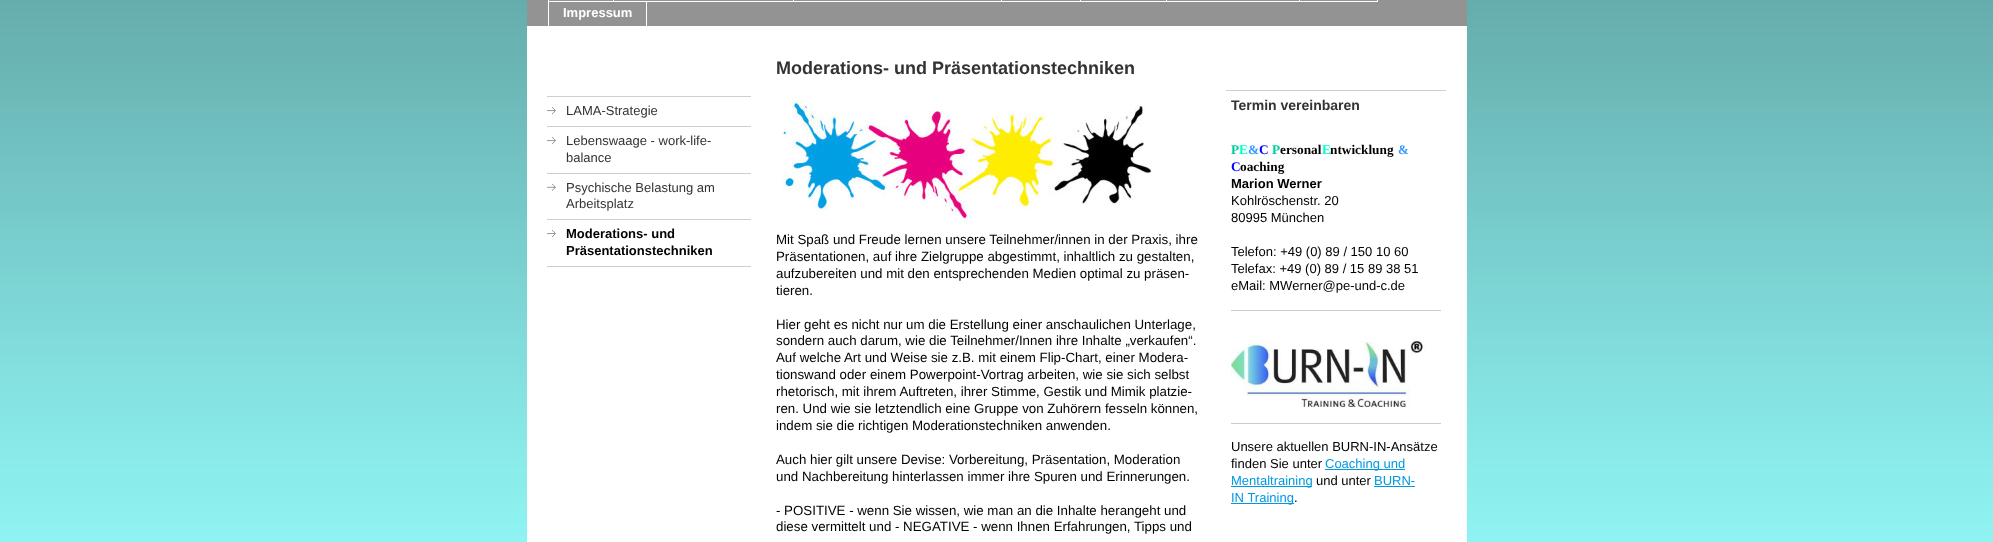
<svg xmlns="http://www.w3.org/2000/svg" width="1993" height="542">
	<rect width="100%" height="100%" fill="#93FBFA" />
	<image x="0" y="0" width="1993" height="542" href="assets/img1.png" />
	<rect x="527" y="26" width="940" height="516" fill="#FFFFFF" />
	<rect x="527" y="0" width="940" height="26" fill="#939393" />
	<rect x="548" y="0" width="1" height="26" fill="#FFFFFF" />
	<rect x="793" y="0" width="1" height="2" fill="#FFFFFF" />
	<rect x="613" y="0" width="1" height="2" fill="#FFFFFF" />
	<rect x="549" y="1" width="245" height="1" fill="#FFFFFF" />
	<rect x="1001" y="0" width="1" height="2" fill="#FFFFFF" />
	<rect x="794" y="1" width="208" height="1" fill="#FFFFFF" />
	<rect x="1080" y="0" width="1" height="2" fill="#FFFFFF" />
	<rect x="1002" y="1" width="79" height="1" fill="#FFFFFF" />
	<rect x="1166" y="0" width="1" height="2" fill="#FFFFFF" />
	<rect x="1081" y="1" width="86" height="1" fill="#FFFFFF" />
	<rect x="1299" y="0" width="1" height="2" fill="#FFFFFF" />
	<rect x="1167" y="1" width="133" height="1" fill="#FFFFFF" />
	<rect x="1377" y="0" width="1" height="2" fill="#FFFFFF" />
	<rect x="1300" y="1" width="78" height="1" fill="#FFFFFF" />
	<rect x="646" y="1" width="1" height="26" fill="#FFFFFF" />
	<text x="563" y="17" font-family="Liberation Sans" font-size="13" font-weight="700" fill="#FFFFFF">Impressum</text>
	<rect x="547" y="96" width="204" height="1" fill="#CAD1D5" />
	<image x="547" y="107" width="9" height="8" href="assets/img2.png" />
	<rect x="547" y="126" width="204" height="1" fill="#CAD1D5" />
	<text x="566" y="115" font-family="Liberation Sans" font-size="13" fill="#333333">LAMA-Strategie</text>
	<image x="547" y="137" width="9" height="8" href="assets/img3.png" />
	<rect x="547" y="173" width="204" height="1" fill="#CAD1D5" />
	<g font-family="Liberation Sans" font-size="13" fill="#333333">
		<text x="566" y="145">Lebenswaage - work-life-</text>
		<text x="566" y="162">balance</text>
	</g>
	<image x="547" y="183" width="9" height="8" href="assets/img4.png" />
	<rect x="547" y="219" width="204" height="1" fill="#CAD1D5" />
	<g font-family="Liberation Sans" font-size="13" fill="#333333">
		<text x="566" y="192">Psychische Belastung am</text>
		<text x="566" y="208">Arbeitsplatz</text>
	</g>
	<image x="547" y="230" width="9" height="8" href="assets/img3.png" />
	<rect x="547" y="266" width="204" height="1" fill="#CAD1D5" />
	<g font-family="Liberation Sans" font-size="13" font-weight="700" fill="#010101">
		<text x="566" y="238">Moderations- und</text>
		<text x="566" y="255">Präsentationstechniken</text>
	</g>
	<text x="776" y="74" font-family="Liberation Sans" font-size="18" font-weight="700" fill="#333333">Moderations- und Präsentationstechniken</text>
	<image x="782" y="100" width="370" height="123" href="assets/img5.png" />
	<g font-family="Liberation Sans" font-size="13.3" fill="#010101">
		<text x="776" y="244">Mit Spaß und Freude lernen unsere Teilnehmer/innen in der Praxis, ihre</text>
		<text x="776" y="261">Präsentationen, auf ihre Zielgruppe abgestimmt, inhaltlich zu gestalten,</text>
		<text x="776" y="278">aufzubereiten und mit den entsprechenden Medien optimal zu präsen-</text>
		<text x="776" y="295">tieren.</text>
		<text x="776" y="329">Hier geht es nicht nur um die Erstellung einer anschaulichen Unterlage,</text>
		<text x="776" y="345">sondern auch darum, wie die Teilnehmer/Innen ihre Inhalte „verkaufen“.</text>
		<text x="776" y="362">Auf welche Art und Weise sie z.B. mit einem Flip-Chart, einer Modera-</text>
		<text x="776" y="379">tionswand oder einem Powerpoint-Vortrag arbeiten, wie sie sich selbst</text>
		<text x="776" y="396">rhetorisch, mit ihrem Auftreten, ihrer Stimme, Gestik und Mimik platzie-</text>
		<text x="776" y="413">ren. Und wie sie letztendlich eine Gruppe von Zuhörern fesseln können,</text>
		<text x="776" y="430">indem sie die richtigen Moderationstechniken anwenden.</text>
		<text x="776" y="464">Auch hier gilt unsere Devise: Vorbereitung, Präsentation, Moderation</text>
		<text x="776" y="481">und Nachbereitung hinterlassen immer ihre Spuren und Erinnerungen.</text>
		<text x="776" y="515">- POSITIVE - wenn Sie wissen, wie man an die Inhalte herangeht und</text>
		<text x="776" y="531">diese vermittelt und - NEGATIVE - wenn Ihnen Erfahrungen, Tipps und</text>
	</g>
	<rect x="1226" y="90" width="220" height="1" fill="#CAD1D5" />
	<text x="1231" y="110" font-family="Liberation Sans" font-size="14" font-weight="700" fill="#333333">Termin vereinbaren</text>
	<text x="1231" y="154" font-family="Liberation Serif" font-size="13.3" font-weight="700" fill="#00CC99">P</text>
	<text x="1239" y="154" font-family="Liberation Serif" font-size="13.3" font-weight="700" fill="#00FFCC">E</text>
	<text x="1248" y="154" font-family="Liberation Serif" font-size="13.3" font-weight="700" fill="#3399FF">&amp;</text>
	<text x="1259" y="154" font-family="Liberation Serif" font-size="13.3" font-weight="700" fill="#0000FF">C</text>
	<text x="1272" y="154" font-family="Liberation Serif" font-size="13.3" font-weight="700" fill="#00CC99">P</text>
	<text x="1280" y="154" font-family="Liberation Serif" font-size="13.3" font-weight="700" fill="#010101">ersonal</text>
	<text x="1322" y="154" font-family="Liberation Serif" font-size="13.3" font-weight="700" fill="#00FFCC">E</text>
	<text x="1330" y="154" font-family="Liberation Serif" font-size="13.3" font-weight="700" fill="#010101">ntwicklung</text>
	<text x="1398" y="154" font-family="Liberation Serif" font-size="13" font-weight="700" fill="#3399FF">&amp;</text>
	<text x="1231" y="171" font-family="Liberation Serif" font-size="13.3" font-weight="700" fill="#0000FF">C</text>
	<text x="1240" y="171" font-family="Liberation Serif" font-size="13.3" font-weight="700" fill="#010101">oaching</text>
	<text x="1231" y="188" font-family="Liberation Sans" font-size="13" font-weight="700" fill="#010101">Marion Werner</text>
	<g font-family="Liberation Sans" font-size="13" fill="#010101">
		<text x="1231" y="205">Kohlröschenstr. 20</text>
		<text x="1231" y="222">80995 München</text>
		<text x="1231" y="256">Telefon: +49 (0) 89 / 150 10 60</text>
		<text x="1231" y="273">Telefax: +49 (0) 89 / 15 89 38 51</text>
		<text x="1231" y="290">eMail: MWerner@pe-und-c.de</text>
	</g>
	<rect x="1231" y="310" width="210" height="1" fill="#CCCCCC" />
	<image x="1231" y="337" width="195" height="70" href="assets/img6.png" />
	<rect x="1231" y="423" width="210" height="1" fill="#CCCCCC" />
	<g font-family="Liberation Sans" font-size="13" fill="#010101">
		<text x="1231" y="451">Unsere aktuellen BURN-IN-Ansätze</text>
		<text x="1231" y="468">finden Sie unter</text>
	</g>
	<rect x="1325" y="469" width="80" height="1" fill="#0099E1" />
	<text x="1325" y="468" font-family="Liberation Sans" font-size="13" fill="#0099E1">Coaching und</text>
	<rect x="1231" y="486" width="81" height="1" fill="#0099E1" />
	<text x="1231" y="485" font-family="Liberation Sans" font-size="13" fill="#0099E1">Mentaltraining</text>
	<text x="1316" y="485" font-family="Liberation Sans" font-size="13" fill="#010101">und unter</text>
	<text x="1374" y="485" font-family="Liberation Sans" font-size="13" fill="#0099E1">BURN-</text>
	<rect x="1374" y="486" width="41" height="1" fill="#0099E1" />
	<rect x="1231" y="503" width="63" height="1" fill="#0099E1" />
	<text x="1231" y="502" font-family="Liberation Sans" font-size="13" fill="#0099E1">IN Training</text>
	<text x="1294" y="502" font-family="Liberation Sans" font-size="13" fill="#010101">.</text>
</svg>
